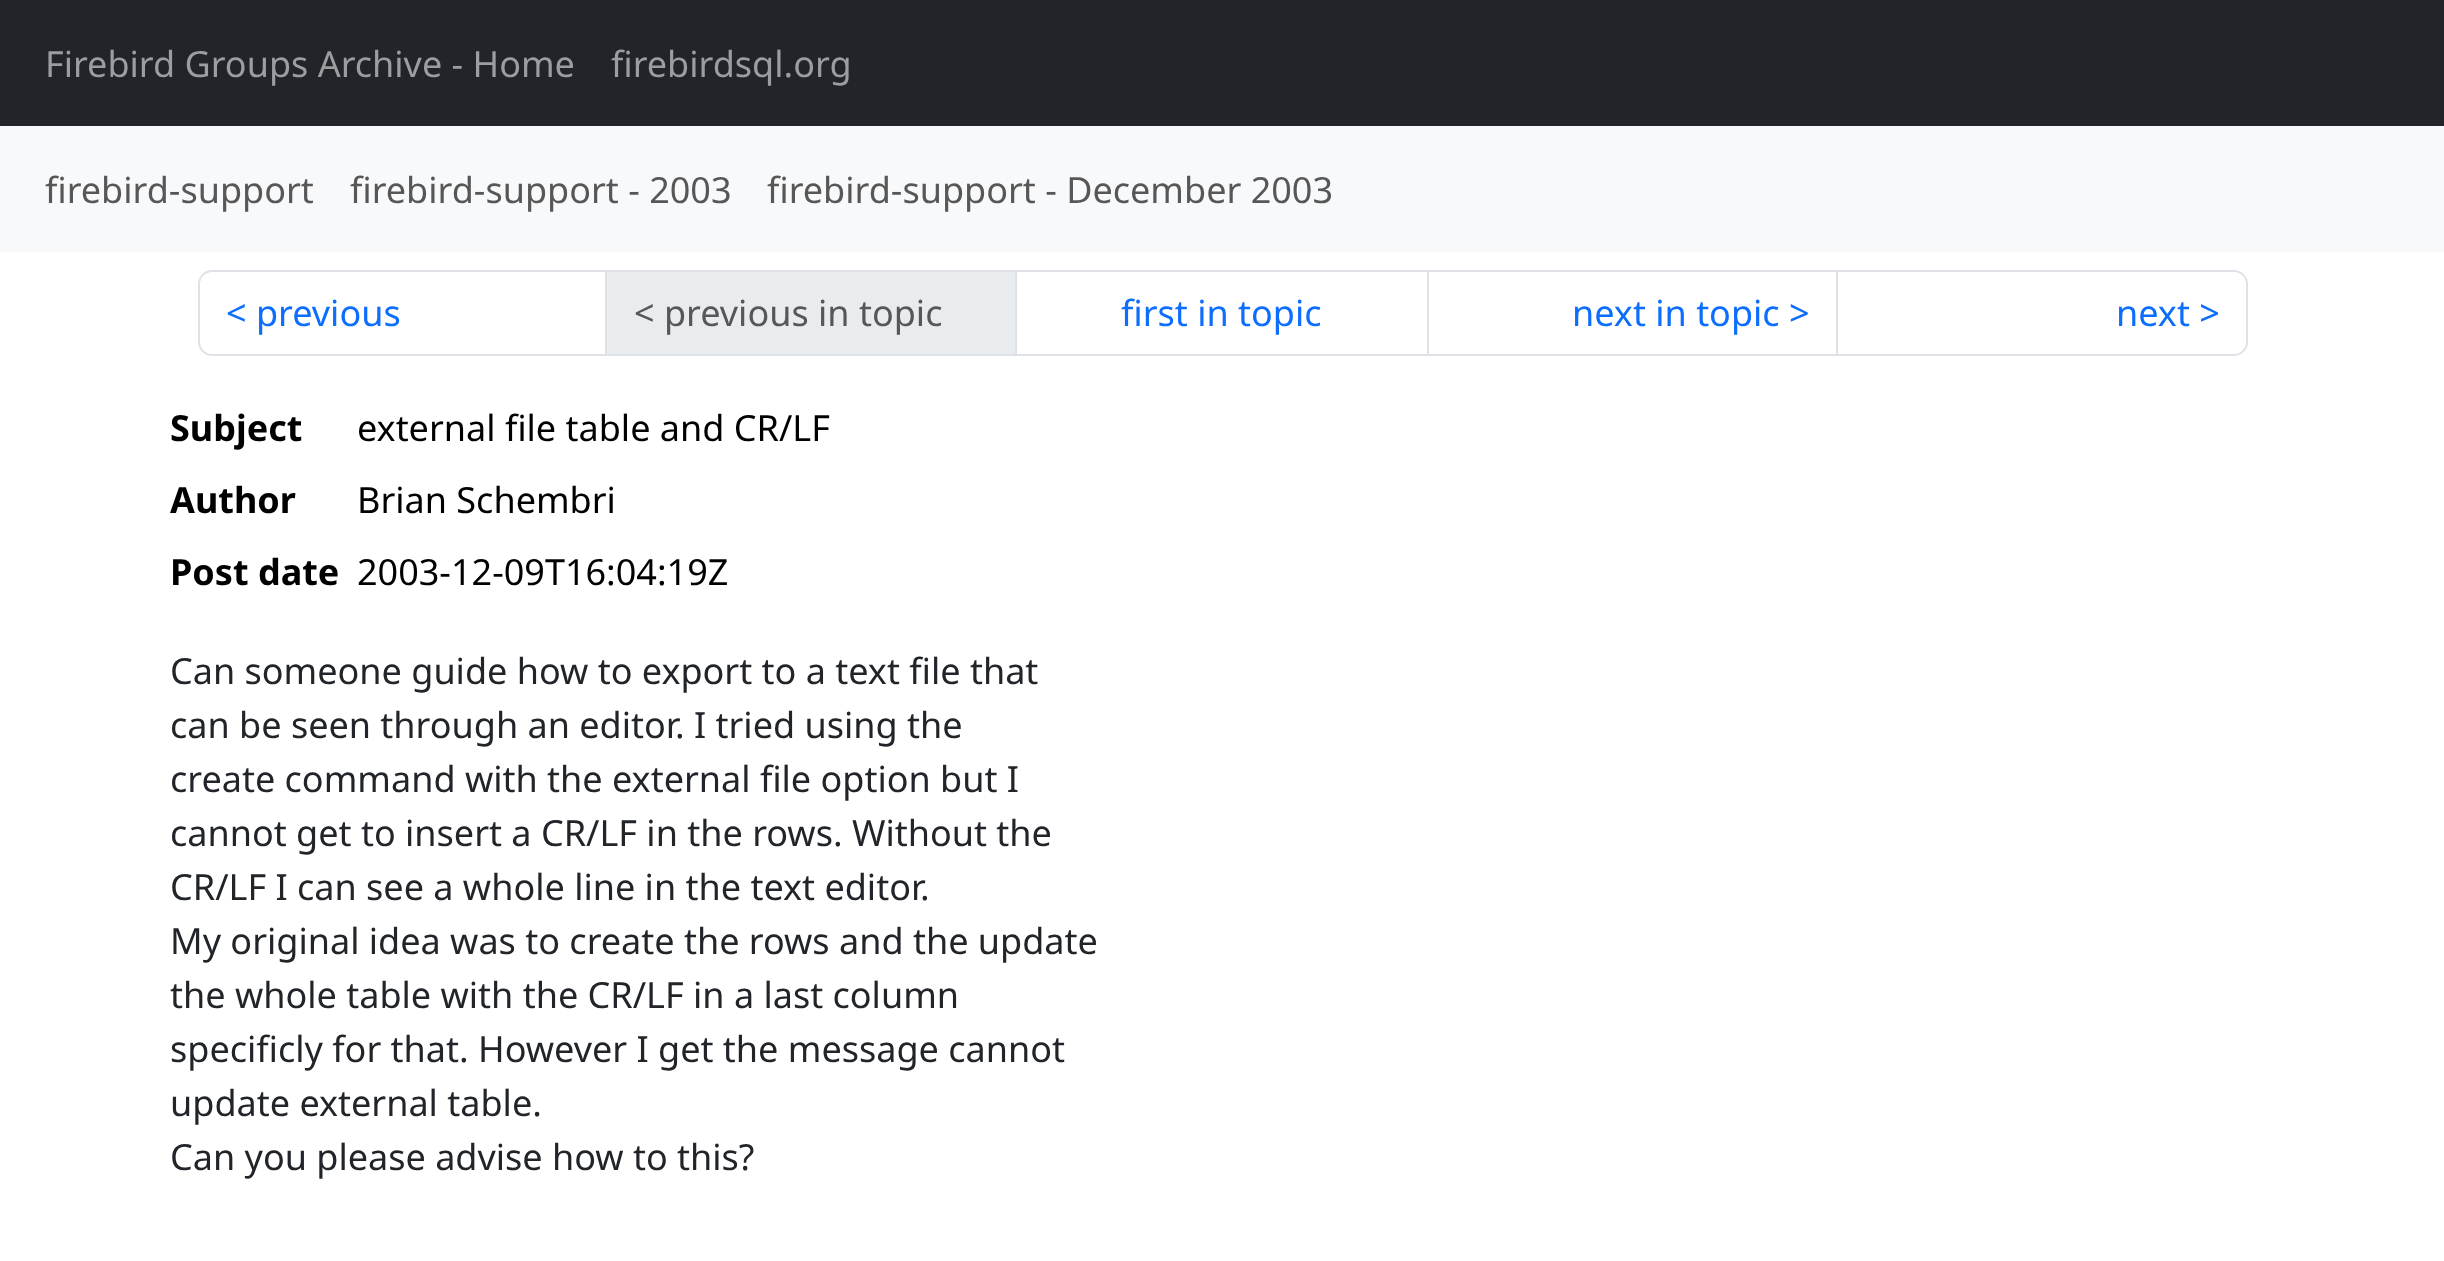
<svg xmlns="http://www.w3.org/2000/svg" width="2444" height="1261">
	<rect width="100%" height="100%" fill="#FFFFFF" />
	<rect x="0" y="0" width="2444" height="126" fill="#212529" />
	<g font-family="Noto Sans" font-size="36" fill="#9B9D9F">
		<text x="45" y="77">Firebird Groups Archive - Home</text>
		<text x="611" y="77">firebirdsql.org</text>
	</g>
	<rect x="0" y="126" width="2444" height="126" fill="#F8F9FA" />
	<g font-family="Noto Sans" font-size="36" fill="#575758">
		<text x="45" y="203">firebird-support</text>
		<text x="350" y="203">firebird-support - 2003</text>
		<text x="767" y="203">firebird-support - December 2003</text>
	</g>
	<path d="M212 271H607V355H212C205 355 199 349 199 342V284C199 277 205 271 212 271Z" fill="none" stroke="#DEE2E6" stroke-width="2" />
	<text x="226" y="326" font-family="Noto Sans" font-size="36" fill="#0D6EFD">&lt; previous</text>
	<rect x="606" y="271" width="410" height="84" fill="#E9ECEF" stroke="#DEE2E6" stroke-width="2" />
	<text x="634" y="326" font-family="Noto Sans" font-size="36" fill="#575758">&lt; previous in topic</text>
	<rect x="1016" y="271" width="412" height="84" fill="none" stroke="#DEE2E6" stroke-width="2" />
	<text x="1121" y="326" font-family="Noto Sans" font-size="36" fill="#0D6EFD">first in topic</text>
	<rect x="1428" y="271" width="409" height="84" fill="none" stroke="#DEE2E6" stroke-width="2" />
	<text x="1572" y="326" font-family="Noto Sans" font-size="36" fill="#0D6EFD">next in topic &gt;</text>
	<path d="M1837 271H2234C2241 271 2247 277 2247 284V342C2247 349 2241 355 2234 355H1837Z" fill="#FFFFFF" stroke="#DEE2E6" stroke-width="2" />
	<text x="2116" y="326" font-family="Noto Sans" font-size="36" fill="#0D6EFD">next &gt;</text>
	<text x="170" y="441" font-family="Noto Sans" font-size="36" font-weight="700" fill="#000000">Subject</text>
	<text x="357" y="441" font-family="Noto Sans" font-size="36" fill="#000000">external file table and CR/LF</text>
	<text x="170" y="513" font-family="Noto Sans" font-size="36" font-weight="700" fill="#000000">Author</text>
	<text x="357" y="513" font-family="Noto Sans" font-size="36" fill="#000000">Brian Schembri</text>
	<text x="170" y="585" font-family="Noto Sans" font-size="36" font-weight="700" fill="#000000">Post date</text>
	<text x="357" y="585" font-family="Noto Sans" font-size="36" fill="#000000">2003-12-09T16:04:19Z</text>
	<g font-family="Noto Sans" font-size="36" fill="#212529">
		<text x="170" y="684">Can someone guide how to export to a text file that</text>
		<text x="170" y="738">can be seen through an editor. I tried using the</text>
		<text x="170" y="792">create command with the external file option but I</text>
		<text x="170" y="846">cannot get to insert a CR/LF in the rows. Without the</text>
		<text x="170" y="900">CR/LF I can see a whole line in the text editor.</text>
		<text x="170" y="954">My original idea was to create the rows and the update</text>
		<text x="170" y="1008">the whole table with the CR/LF in a last column</text>
		<text x="170" y="1062">specificly for that. However I get the message cannot</text>
		<text x="170" y="1116">update external table.</text>
		<text x="170" y="1170">Can you please advise how to this?</text>
	</g>
</svg>
